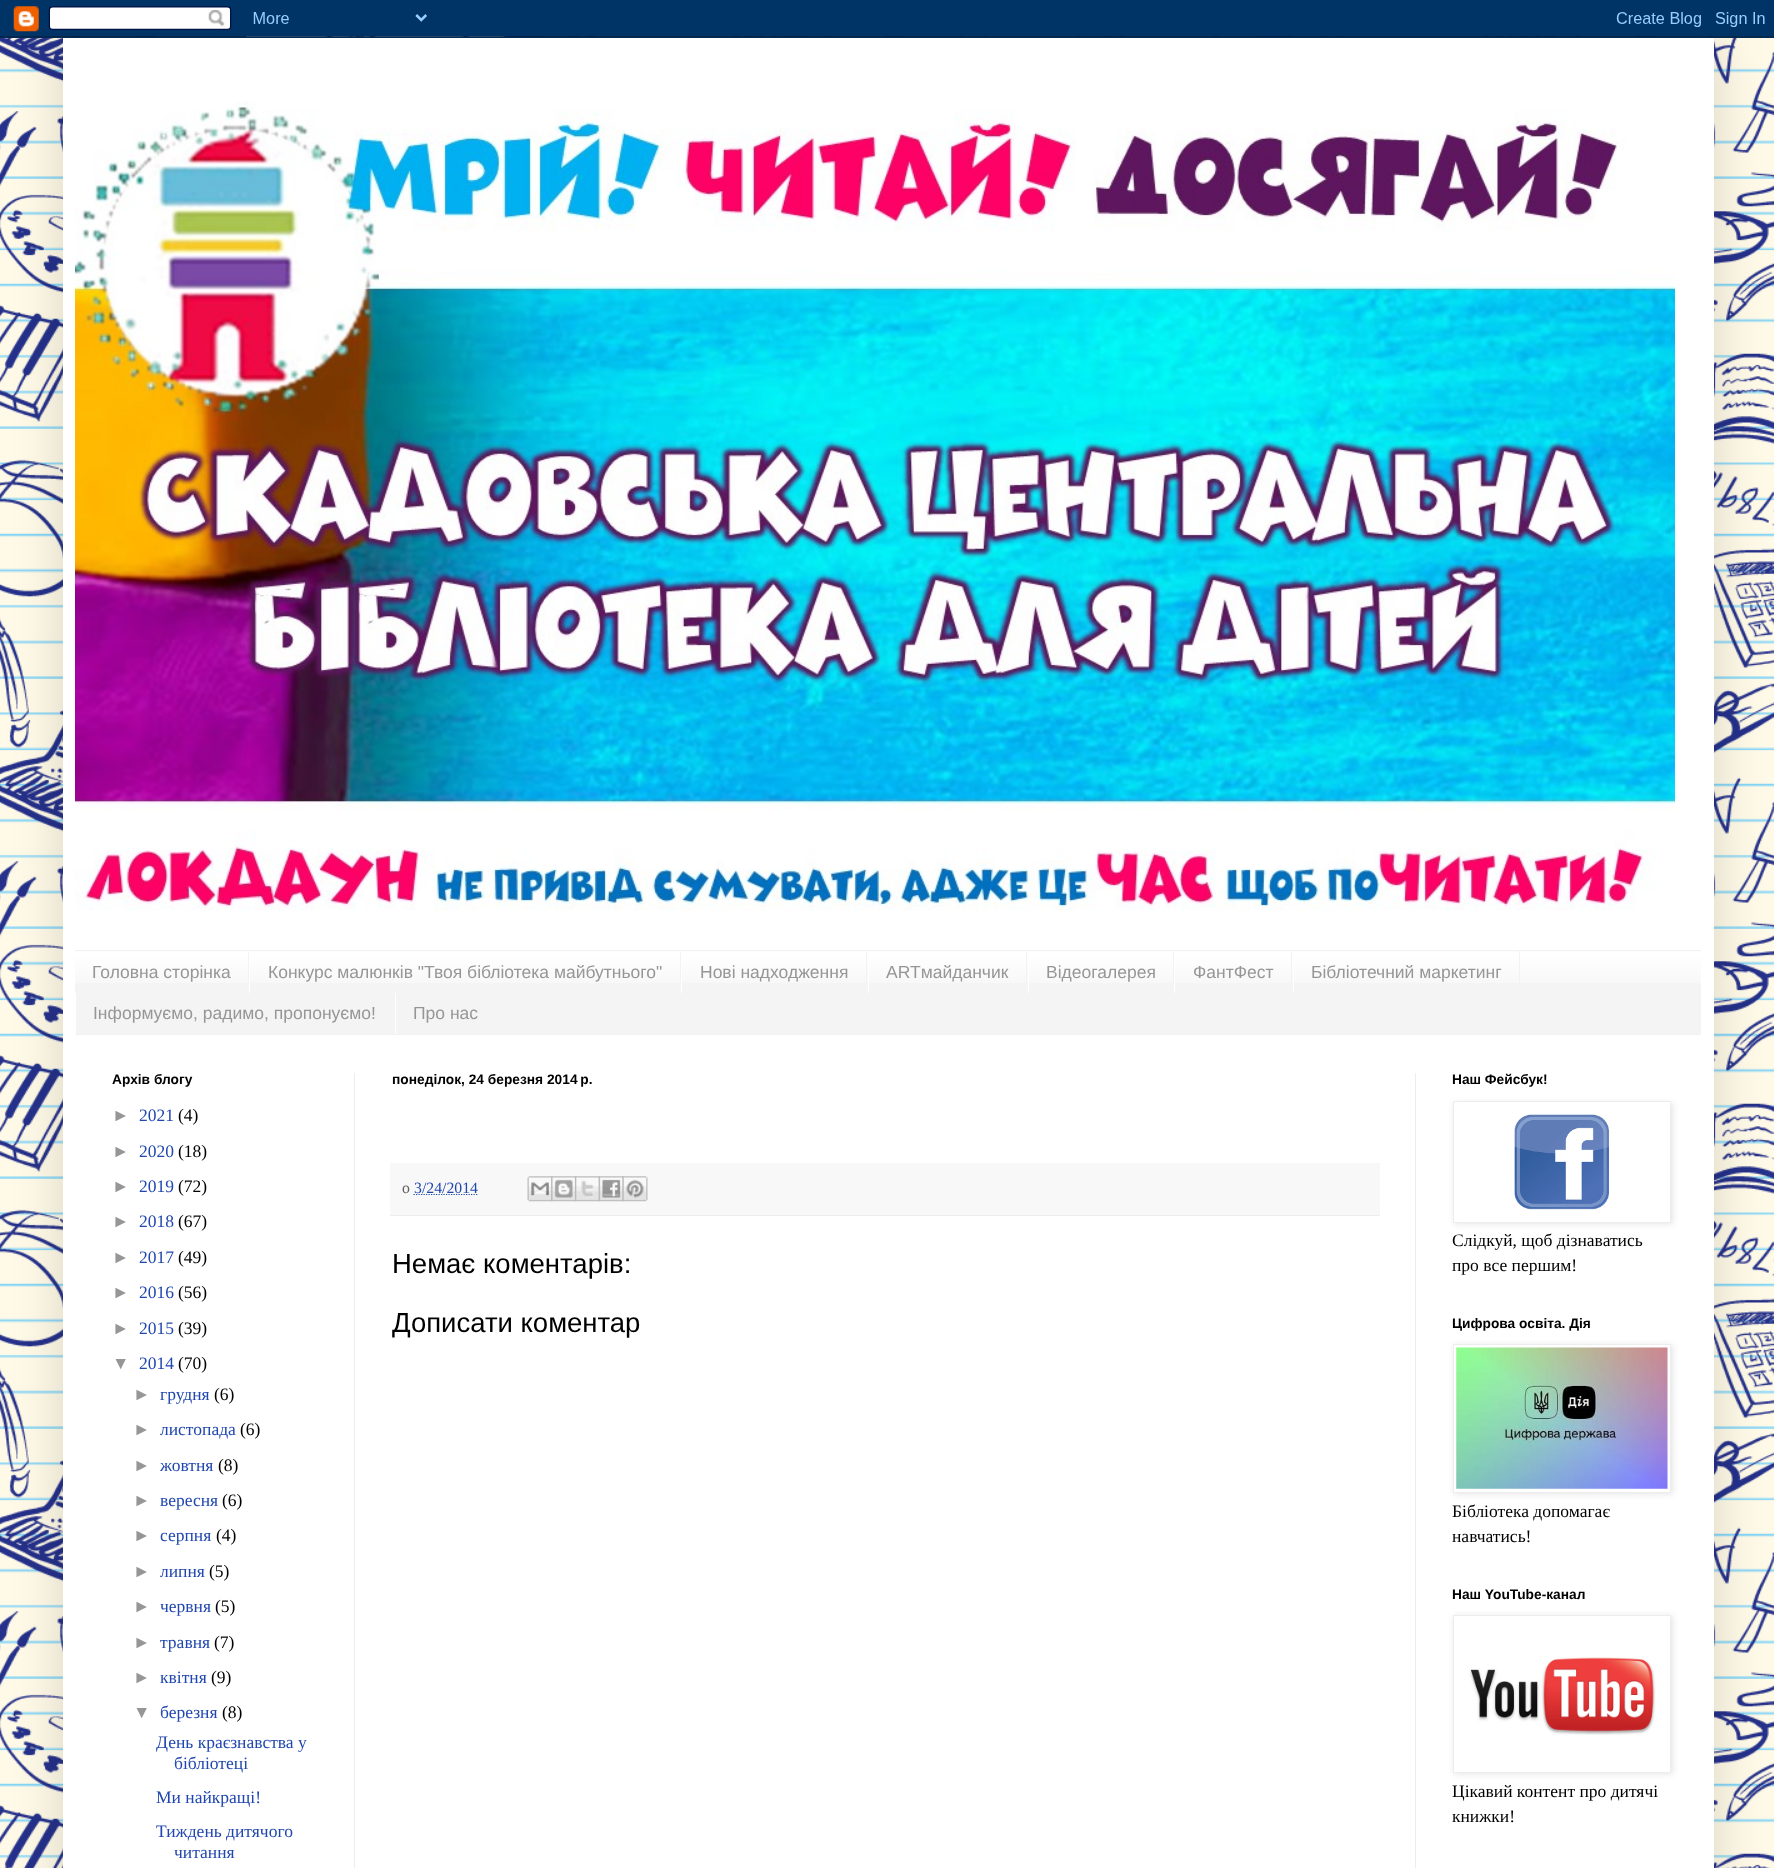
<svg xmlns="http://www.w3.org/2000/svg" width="1774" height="1868">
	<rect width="100%" height="100%" fill="#FFFFFF" />
	<image x="0" y="36" width="1774" height="1832" href="assets/img1.png" />
	<rect x="63" y="38" width="1651" height="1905" fill="#000000" fill-opacity="0.15" filter="blur(25px)" />
	<image x="0" y="0" width="1774" height="38" href="assets/img2.png" />
	<rect x="63" y="38" width="1651" height="1830" fill="#FFFFFF" />
	<image x="75" y="101" width="1600" height="810" href="assets/img3.png" />
	<rect x="75" y="951" width="1626" height="83" fill="#F4F4F4" />
	<image x="75" y="951" width="1626" height="32" href="assets/img4.png" />
	<rect x="75" y="950" width="1626" height="1" fill="#F2F2F2" />
	<rect x="75" y="1034" width="1626" height="1" fill="#F2F2F2" />
	<rect x="248" y="951" width="1" height="32" fill="#F2F2F2" />
	<text x="92" y="978" font-family="Liberation Sans" font-size="17.5" fill="#969696">Головна сторінка</text>
	<rect x="680" y="951" width="1" height="32" fill="#F2F2F2" />
	<rect x="249" y="951" width="1" height="42" fill="#FFFFFF" />
	<text x="268" y="978" font-family="Liberation Sans" font-size="17.5" fill="#969696">Конкурс малюнків "Твоя бібліотека майбутнього"</text>
	<rect x="866" y="951" width="1" height="32" fill="#F2F2F2" />
	<rect x="681" y="951" width="1" height="42" fill="#FFFFFF" />
	<text x="700" y="978" font-family="Liberation Sans" font-size="17.5" fill="#969696">Нові надходження</text>
	<rect x="1026" y="951" width="1" height="32" fill="#F2F2F2" />
	<rect x="868" y="951" width="1" height="42" fill="#FFFFFF" />
	<text x="886" y="978" font-family="Liberation Sans" font-size="17.5" fill="#969696">ARTмайданчик</text>
	<rect x="1173" y="951" width="1" height="32" fill="#F2F2F2" />
	<rect x="1028" y="951" width="1" height="42" fill="#FFFFFF" />
	<text x="1046" y="978" font-family="Liberation Sans" font-size="17.5" fill="#969696">Відеогалерея</text>
	<rect x="1291" y="951" width="1" height="32" fill="#F2F2F2" />
	<rect x="1174" y="951" width="1" height="42" fill="#FFFFFF" />
	<text x="1193" y="978" font-family="Liberation Sans" font-size="17.5" fill="#969696">ФантФест</text>
	<rect x="1519" y="951" width="1" height="32" fill="#F2F2F2" />
	<rect x="1293" y="951" width="1" height="42" fill="#FFFFFF" />
	<text x="1311" y="978" font-family="Liberation Sans" font-size="17.5" fill="#969696">Бібліотечний маркетинг</text>
	<rect x="75" y="993" width="1" height="41" fill="#FFFFFF" />
	<text x="93" y="1019" font-family="Liberation Sans" font-size="17.5" fill="#969696">Інформуємо, радимо, пропонуємо!</text>
	<rect x="395" y="993" width="1" height="41" fill="#FFFFFF" />
	<text x="413" y="1019" font-family="Liberation Sans" font-size="17.5" fill="#969696">Про нас</text>
	<text x="112" y="1084" font-family="Liberation Sans" font-size="13.75" font-weight="700" fill="#000000">Архів блогу</text>
	<text x="112" y="1121" font-family="Liberation Sans" font-size="17.5" fill="#969696">►</text>
	<text x="139" y="1121" font-family="Liberation Serif" font-size="17.5" fill="#2047AF">2021</text>
	<text x="178" y="1121" font-family="Liberation Serif" font-size="17.5" fill="#000000">(4)</text>
	<text x="112" y="1157" font-family="Liberation Sans" font-size="17.5" fill="#969696">►</text>
	<text x="139" y="1157" font-family="Liberation Serif" font-size="17.5" fill="#2047AF">2020</text>
	<text x="178" y="1157" font-family="Liberation Serif" font-size="17.5" fill="#000000">(18)</text>
	<text x="112" y="1192" font-family="Liberation Sans" font-size="17.5" fill="#969696">►</text>
	<text x="139" y="1192" font-family="Liberation Serif" font-size="17.5" fill="#2047AF">2019</text>
	<text x="178" y="1192" font-family="Liberation Serif" font-size="17.5" fill="#000000">(72)</text>
	<text x="112" y="1227" font-family="Liberation Sans" font-size="17.5" fill="#969696">►</text>
	<text x="139" y="1227" font-family="Liberation Serif" font-size="17.5" fill="#2047AF">2018</text>
	<text x="178" y="1227" font-family="Liberation Serif" font-size="17.5" fill="#000000">(67)</text>
	<text x="112" y="1263" font-family="Liberation Sans" font-size="17.5" fill="#969696">►</text>
	<text x="139" y="1263" font-family="Liberation Serif" font-size="17.5" fill="#2047AF">2017</text>
	<text x="178" y="1263" font-family="Liberation Serif" font-size="17.5" fill="#000000">(49)</text>
	<text x="112" y="1298" font-family="Liberation Sans" font-size="17.5" fill="#969696">►</text>
	<text x="139" y="1298" font-family="Liberation Serif" font-size="17.5" fill="#2047AF">2016</text>
	<text x="178" y="1298" font-family="Liberation Serif" font-size="17.5" fill="#000000">(56)</text>
	<text x="112" y="1334" font-family="Liberation Sans" font-size="17.5" fill="#969696">►</text>
	<text x="139" y="1334" font-family="Liberation Serif" font-size="17.5" fill="#2047AF">2015</text>
	<text x="178" y="1334" font-family="Liberation Serif" font-size="17.5" fill="#000000">(39)</text>
	<text x="112" y="1369" font-family="Liberation Sans" font-size="17.5" fill="#969696">▼</text>
	<text x="139" y="1369" font-family="Liberation Serif" font-size="17.5" fill="#2047AF">2014</text>
	<text x="178" y="1369" font-family="Liberation Serif" font-size="17.5" fill="#000000">(70)</text>
	<text x="133" y="1400" font-family="Liberation Sans" font-size="17.5" fill="#969696">►</text>
	<text x="160" y="1400" font-family="Liberation Serif" font-size="17.5" fill="#2047AF">грудня</text>
	<text x="214" y="1400" font-family="Liberation Serif" font-size="17.5" fill="#000000">(6)</text>
	<text x="133" y="1435" font-family="Liberation Sans" font-size="17.5" fill="#969696">►</text>
	<text x="160" y="1435" font-family="Liberation Serif" font-size="17.5" fill="#2047AF">листопада</text>
	<text x="240" y="1435" font-family="Liberation Serif" font-size="17.5" fill="#000000">(6)</text>
	<text x="133" y="1471" font-family="Liberation Sans" font-size="17.5" fill="#969696">►</text>
	<text x="160" y="1471" font-family="Liberation Serif" font-size="17.5" fill="#2047AF">жовтня</text>
	<text x="218" y="1471" font-family="Liberation Serif" font-size="17.5" fill="#000000">(8)</text>
	<text x="133" y="1506" font-family="Liberation Sans" font-size="17.5" fill="#969696">►</text>
	<text x="160" y="1506" font-family="Liberation Serif" font-size="17.5" fill="#2047AF">вересня</text>
	<text x="222" y="1506" font-family="Liberation Serif" font-size="17.5" fill="#000000">(6)</text>
	<text x="133" y="1541" font-family="Liberation Sans" font-size="17.5" fill="#969696">►</text>
	<text x="160" y="1541" font-family="Liberation Serif" font-size="17.5" fill="#2047AF">серпня</text>
	<text x="216" y="1541" font-family="Liberation Serif" font-size="17.5" fill="#000000">(4)</text>
	<text x="133" y="1577" font-family="Liberation Sans" font-size="17.5" fill="#969696">►</text>
	<text x="160" y="1577" font-family="Liberation Serif" font-size="17.5" fill="#2047AF">липня</text>
	<text x="209" y="1577" font-family="Liberation Serif" font-size="17.5" fill="#000000">(5)</text>
	<text x="133" y="1612" font-family="Liberation Sans" font-size="17.5" fill="#969696">►</text>
	<text x="160" y="1612" font-family="Liberation Serif" font-size="17.5" fill="#2047AF">червня</text>
	<text x="215" y="1612" font-family="Liberation Serif" font-size="17.5" fill="#000000">(5)</text>
	<text x="133" y="1648" font-family="Liberation Sans" font-size="17.5" fill="#969696">►</text>
	<text x="160" y="1648" font-family="Liberation Serif" font-size="17.5" fill="#2047AF">травня</text>
	<text x="214" y="1648" font-family="Liberation Serif" font-size="17.5" fill="#000000">(7)</text>
	<text x="133" y="1683" font-family="Liberation Sans" font-size="17.5" fill="#969696">►</text>
	<text x="160" y="1683" font-family="Liberation Serif" font-size="17.5" fill="#2047AF">квітня</text>
	<text x="211" y="1683" font-family="Liberation Serif" font-size="17.5" fill="#000000">(9)</text>
	<text x="133" y="1718" font-family="Liberation Sans" font-size="17.5" fill="#969696">▼</text>
	<text x="160" y="1718" font-family="Liberation Serif" font-size="17.5" fill="#2047AF">березня</text>
	<text x="222" y="1718" font-family="Liberation Serif" font-size="17.5" fill="#000000">(8)</text>
	<g font-family="Liberation Serif" font-size="17.5" fill="#2047AF">
		<text x="156" y="1748">День краєзнавства у</text>
		<text x="174" y="1769">бібліотеці</text>
		<text x="156" y="1803">Ми найкращі!</text>
		<text x="156" y="1837">Тиждень дитячого</text>
		<text x="174" y="1858">читання</text>
	</g>
	<text x="392" y="1084" font-family="Liberation Sans" font-size="13.75" font-weight="700" fill="#000000">понеділок, 24 березня 2014 р.</text>
	<rect x="390" y="1163" width="990" height="52" fill="#F8F8F8" />
	<rect x="390" y="1215" width="990" height="1" fill="#EDEDED" />
	<text x="402" y="1193" font-family="Liberation Serif" font-size="15.75" fill="#5E5E5E">о</text>
	<path d="M413.5 1194.5H477.5" fill="none" stroke="#2047AF" stroke-width="1.2" stroke-dasharray="1.25 1.25" />
	<text x="414" y="1193" font-family="Liberation Serif" font-size="15.75" fill="#2047AF">3/24/2014</text>
	<image x="527" y="1176" width="26" height="26" href="assets/img5.png" />
	<image x="551" y="1176" width="26" height="26" href="assets/img6.png" />
	<image x="575" y="1176" width="25" height="26" href="assets/img7.png" />
	<image x="598" y="1176" width="26" height="26" href="assets/img8.png" />
	<image x="622" y="1176" width="26" height="26" href="assets/img9.png" />
	<g font-family="Liberation Sans" font-size="27.5" fill="#000000">
		<text x="392" y="1273">Немає коментарів:</text>
		<text x="392" y="1332">Дописати коментар</text>
	</g>
	<text x="1452" y="1084" font-family="Liberation Sans" font-size="13.75" font-weight="700" fill="#000000">Наш Фейсбук!</text>
	<rect x="1454" y="1103" width="219" height="121" fill="#000000" fill-opacity="0.1" filter="blur(3px)" />
	<rect x="1453.5" y="1101.5" width="217" height="121" fill="#FFFFFF" stroke="#EDEDED" />
	<image x="1514" y="1113" width="96" height="97" href="assets/img10.png" />
	<g font-family="Liberation Serif" font-size="17.5" fill="#000000">
		<text x="1452" y="1246">Слідкуй, щоб дізнаватись</text>
		<text x="1452" y="1271">про все першим!</text>
	</g>
	<text x="1452" y="1328" font-family="Liberation Sans" font-size="13.75" font-weight="700" fill="#000000">Цифрова освіта. Дія</text>
	<rect x="1454" y="1345" width="219" height="149" fill="#000000" fill-opacity="0.1" filter="blur(3px)" />
	<rect x="1453.5" y="1344.5" width="217" height="148" fill="#FFFFFF" stroke="#EDEDED" />
	<image x="1456" y="1347" width="212" height="142" href="assets/img11.png" />
	<g font-family="Liberation Serif" font-size="17.5" fill="#000000">
		<text x="1452" y="1517">Бібліотека допомагає</text>
		<text x="1452" y="1542">навчатись!</text>
	</g>
	<text x="1452" y="1599" font-family="Liberation Sans" font-size="13.75" font-weight="700" fill="#000000">Наш YouTube-канал</text>
	<rect x="1454" y="1616" width="219" height="158" fill="#000000" fill-opacity="0.1" filter="blur(3px)" />
	<rect x="1453.5" y="1615.5" width="217" height="157" fill="#FFFFFF" stroke="#EDEDED" />
	<image x="1469" y="1657" width="187" height="78" href="assets/img12.png" />
	<g font-family="Liberation Serif" font-size="17.5" fill="#000000">
		<text x="1452" y="1797">Цікавий контент про дитячі</text>
		<text x="1452" y="1822">книжки!</text>
	</g>
	<rect x="354" y="1073" width="1" height="795" fill="#EDEDED" />
	<rect x="1415" y="1073" width="1" height="795" fill="#EDEDED" />
</svg>
